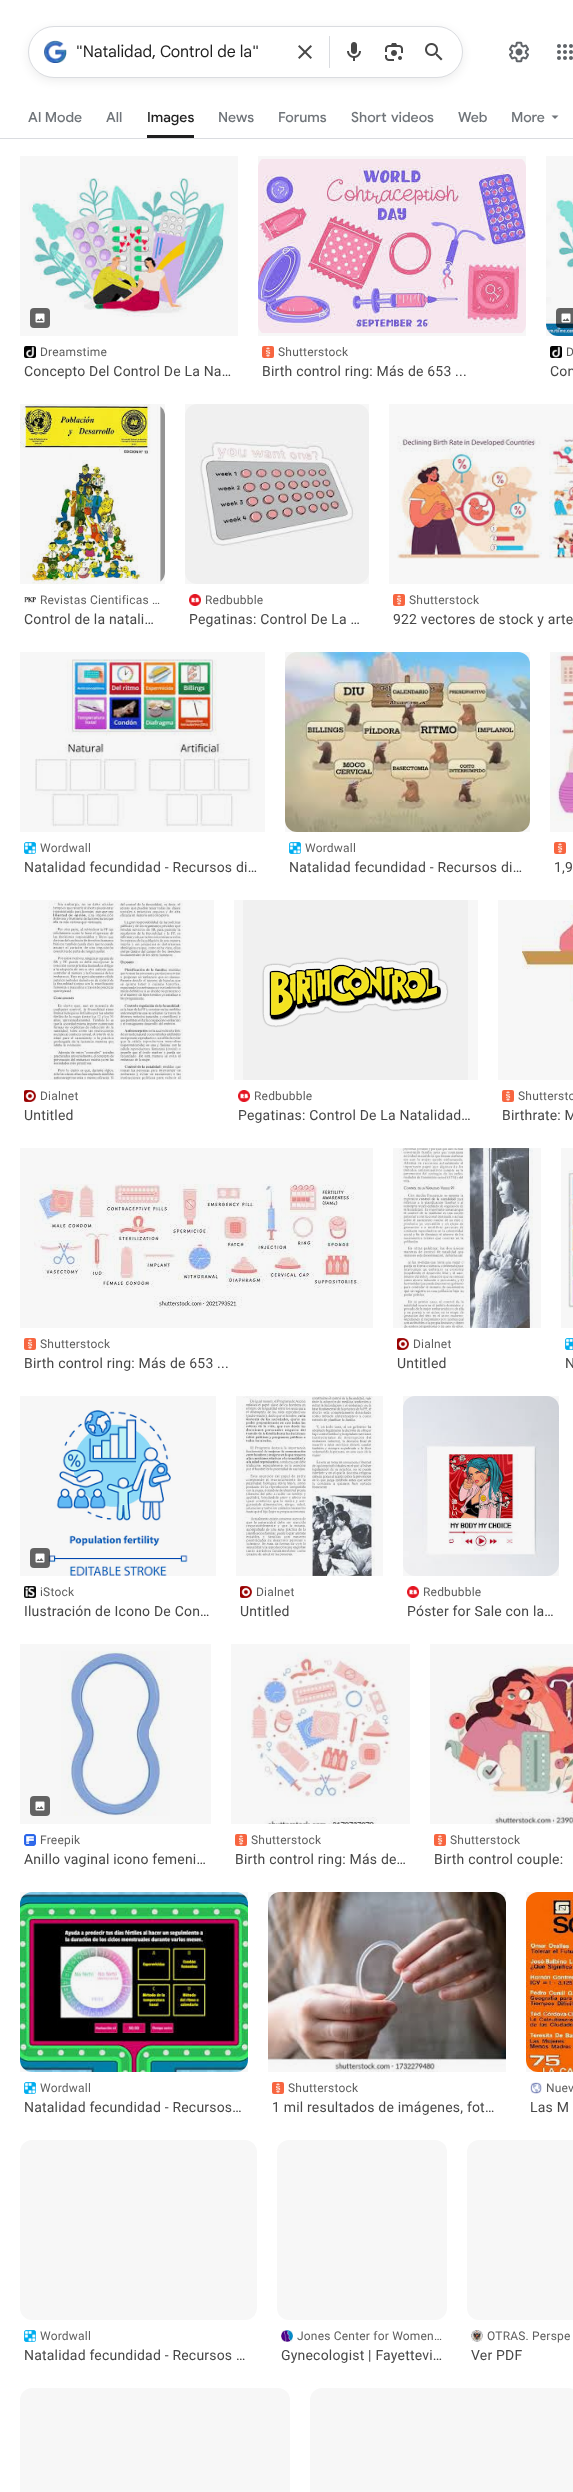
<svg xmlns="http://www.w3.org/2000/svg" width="573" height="2492">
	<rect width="100%" height="100%" fill="#FFFFFF" />
	<rect x="28" y="29" width="435" height="52" rx="26" fill="#1F1F1F" fill-opacity="0.08" filter="blur(5px)" />
	<rect x="28.5" y="26.5" width="434" height="51" rx="25.5" fill="#FFFFFF" stroke="#DADCE0" />
	<image x="44" y="40" width="23" height="23" href="assets/img1.png" />
	<text x="76" y="57" font-family="Google Sans" font-size="16" fill="#1F1F1F">"Natalidad, Control de la"</text>
	<image x="298" y="45" width="14" height="14" href="assets/img2.png" />
	<rect x="329" y="36" width="1" height="32" fill="#DADCE0" />
	<image x="347" y="42" width="14" height="19" href="assets/img3.png" />
	<image x="385" y="43" width="18" height="18" href="assets/img4.png" />
	<image x="425" y="43" width="18" height="18" href="assets/img5.png" />
	<image x="509" y="41" width="20" height="22" href="assets/img6.png" />
	<image x="557" y="44" width="16" height="16" href="assets/img7.png" />
	<g font-family="Google Sans" font-size="14" font-weight="500" fill="#70757A">
		<text x="28" y="122">AI Mode</text>
		<text x="106" y="122">All</text>
	</g>
	<rect x="147" y="135" width="47" height="3" fill="#1F1F1F" />
	<text x="147" y="122" font-family="Google Sans" font-size="14" font-weight="500" fill="#1F1F1F">Images</text>
	<g font-family="Google Sans" font-size="14" font-weight="500" fill="#70757A">
		<text x="218" y="122">News</text>
		<text x="278" y="122">Forums</text>
		<text x="351" y="122" word-spacing="1">Short videos</text>
		<text x="458" y="122">Web</text>
		<text x="511" y="122">More</text>
	</g>
	<path d="M551.5 115.5L555 119L558.5 115.5Z" fill="#70757A" />
	<rect x="0" y="138" width="573" height="1" fill="#DADCE0" />
	<image x="28" y="178" width="202" height="139" href="assets/img8.png" />
	<rect x="20" y="156" width="218" height="180" fill="#000000" fill-opacity="0.03" />
	<rect x="30" y="308" width="20" height="20" rx="4" fill="#636363" />
	<image x="35" y="313" width="10" height="10" href="assets/img9.png" />
	<image x="24" y="346" width="12" height="12" href="assets/img10.png" />
	<text x="40" y="356" font-family="Roboto" font-size="12" letter-spacing="0.2" fill="#5E5E5E">Dreamstime</text>
	<text x="24" y="376" font-family="Roboto" font-size="14" letter-spacing="0.2" fill="#474747">Concepto Del Control De La Na…</text>
	<image x="258" y="159" width="268" height="174" href="assets/img11.png" />
	<rect x="258" y="156" width="268" height="180" fill="#000000" fill-opacity="0.03" />
	<image x="262" y="346" width="12" height="12" href="assets/img12.png" />
	<text x="278" y="356" font-family="Roboto" font-size="12" letter-spacing="0.2" fill="#5E5E5E">Shutterstock</text>
	<text x="262" y="376" font-family="Roboto" font-size="14" letter-spacing="0.2" fill="#474747">Birth control ring: Más de 653 ...</text>
	<image x="546" y="198" width="27" height="138" href="assets/img13.png" />
	<rect x="546" y="156" width="27" height="180" fill="#000000" fill-opacity="0.03" />
	<rect x="556" y="308" width="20" height="20" rx="4" fill="#000000" fill-opacity="0.6" />
	<image x="561" y="313" width="10" height="10" href="assets/img14.png" />
	<image x="550" y="346" width="12" height="12" href="assets/img10.png" />
	<text x="566" y="356" font-family="Roboto" font-size="12" letter-spacing="0.2" fill="#5E5E5E">D</text>
	<text x="550" y="376" font-family="Roboto" font-size="14" letter-spacing="0.2" fill="#474747">Con</text>
	<image x="20" y="404" width="145" height="180" href="assets/img15.png" />
	<rect x="20" y="404" width="145" height="180" fill="#000000" fill-opacity="0.03" />
	<image x="24" y="597" width="12" height="6" href="assets/img16.png" />
	<text x="40" y="604" font-family="Roboto" font-size="12" letter-spacing="0.2" fill="#5E5E5E">Revistas Cientificas …</text>
	<text x="24" y="624" font-family="Roboto" font-size="14" letter-spacing="0.2" fill="#474747">Control de la natali…</text>
	<image x="185" y="404" width="184" height="180" href="assets/img17.png" />
	<rect x="185" y="404" width="184" height="180" fill="#000000" fill-opacity="0.03" />
	<image x="189" y="594" width="12" height="12" href="assets/img18.png" />
	<text x="205" y="604" font-family="Roboto" font-size="12" letter-spacing="0.2" fill="#5E5E5E">Redbubble</text>
	<text x="189" y="624" font-family="Roboto" font-size="14" letter-spacing="0.2" fill="#474747">Pegatinas: Control De La …</text>
	<image x="397" y="436" width="176" height="123" href="assets/img19.png" />
	<rect x="389" y="404" width="184" height="180" fill="#000000" fill-opacity="0.03" />
	<image x="393" y="594" width="12" height="12" href="assets/img20.png" />
	<text x="409" y="604" font-family="Roboto" font-size="12" letter-spacing="0.2" fill="#5E5E5E">Shutterstock</text>
	<text x="393" y="624" font-family="Roboto" font-size="14" letter-spacing="0.2" fill="#474747">922 vectores de stock y arte</text>
	<image x="35" y="659" width="218" height="168" href="assets/img21.png" />
	<rect x="20" y="652" width="245" height="180" fill="#000000" fill-opacity="0.03" />
	<image x="24" y="842" width="12" height="12" href="assets/img22.png" />
	<text x="40" y="852" font-family="Roboto" font-size="12" letter-spacing="0.2" fill="#5E5E5E">Wordwall</text>
	<text x="24" y="872" font-family="Roboto" font-size="14" letter-spacing="0.2" fill="#474747">Natalidad fecundidad - Recursos di…</text>
	<image x="285" y="652" width="245" height="180" href="assets/img23.png" />
	<rect x="285" y="652" width="245" height="180" fill="#000000" fill-opacity="0.03" />
	<image x="289" y="842" width="12" height="12" href="assets/img24.png" />
	<text x="305" y="852" font-family="Roboto" font-size="12" letter-spacing="0.2" fill="#5E5E5E">Wordwall</text>
	<text x="289" y="872" font-family="Roboto" font-size="14" letter-spacing="0.2" fill="#474747">Natalidad fecundidad - Recursos di…</text>
	<image x="550" y="652" width="23" height="169" href="assets/img25.png" />
	<rect x="550" y="652" width="23" height="180" fill="#000000" fill-opacity="0.03" />
	<image x="554" y="842" width="12" height="12" href="assets/img26.png" />
	<text x="554" y="872" font-family="Roboto" font-size="14" letter-spacing="0.2" fill="#474747">1,9</text>
	<image x="48" y="901" width="135" height="179" href="assets/img27.png" />
	<rect x="20" y="900" width="194" height="180" fill="#000000" fill-opacity="0.03" />
	<image x="24" y="1090" width="12" height="12" href="assets/img28.png" />
	<text x="40" y="1100" font-family="Roboto" font-size="12" letter-spacing="0.2" fill="#5E5E5E">Dialnet</text>
	<text x="24" y="1120" font-family="Roboto" font-size="14" letter-spacing="0.2" fill="#474747">Untitled</text>
	<image x="243" y="900" width="225" height="180" href="assets/img29.png" />
	<rect x="234" y="900" width="244" height="180" fill="#000000" fill-opacity="0.03" />
	<image x="238" y="1090" width="12" height="12" href="assets/img30.png" />
	<text x="254" y="1100" font-family="Roboto" font-size="12" letter-spacing="0.2" fill="#5E5E5E">Redbubble</text>
	<text x="238" y="1120" font-family="Roboto" font-size="14" letter-spacing="0.2" fill="#474747">Pegatinas: Control De La Natalidad…</text>
	<image x="522" y="905" width="51" height="97" href="assets/img31.png" />
	<rect x="498" y="900" width="75" height="180" fill="#000000" fill-opacity="0.03" />
	<image x="502" y="1090" width="12" height="12" href="assets/img32.png" />
	<text x="518" y="1100" font-family="Roboto" font-size="12" letter-spacing="0.2" fill="#5E5E5E">Shuttersto</text>
	<text x="502" y="1120" font-family="Roboto" font-size="14" letter-spacing="0.2" fill="#474747">Birthrate: M</text>
	<image x="34" y="1184" width="328" height="124" href="assets/img33.png" />
	<rect x="20" y="1148" width="353" height="180" fill="#000000" fill-opacity="0.03" />
	<image x="24" y="1338" width="12" height="12" href="assets/img34.png" />
	<text x="40" y="1348" font-family="Roboto" font-size="12" letter-spacing="0.2" fill="#5E5E5E">Shutterstock</text>
	<text x="24" y="1368" font-family="Roboto" font-size="14" letter-spacing="0.2" fill="#474747">Birth control ring: Más de 653 ...</text>
	<image x="399" y="1148" width="134" height="180" href="assets/img35.png" />
	<rect x="393" y="1148" width="148" height="180" fill="#000000" fill-opacity="0.03" />
	<image x="397" y="1338" width="12" height="12" href="assets/img36.png" />
	<text x="413" y="1348" font-family="Roboto" font-size="12" letter-spacing="0.2" fill="#5E5E5E">Dialnet</text>
	<text x="397" y="1368" font-family="Roboto" font-size="14" letter-spacing="0.2" fill="#474747">Untitled</text>
	<image x="568" y="1170" width="5" height="138" href="assets/img37.png" />
	<rect x="561" y="1148" width="12" height="180" fill="#000000" fill-opacity="0.03" />
	<image x="565" y="1338" width="8" height="12" href="assets/img38.png" />
	<text x="565" y="1368" font-family="Roboto" font-size="14" letter-spacing="0.2" fill="#474747">N</text>
	<image x="48" y="1410" width="140" height="166" href="assets/img39.png" />
	<rect x="20" y="1396" width="196" height="180" fill="#000000" fill-opacity="0.03" />
	<rect x="30" y="1548" width="20" height="20" rx="4" fill="#000000" fill-opacity="0.6" />
	<image x="35" y="1553" width="10" height="10" href="assets/img9.png" />
	<image x="24" y="1586" width="12" height="12" href="assets/img40.png" />
	<text x="40" y="1596" font-family="Roboto" font-size="12" letter-spacing="0.2" fill="#5E5E5E">iStock</text>
	<text x="24" y="1616" font-family="Roboto" font-size="14" letter-spacing="0.2" fill="#474747">Ilustración de Icono De Con…</text>
	<image x="242" y="1396" width="133" height="180" href="assets/img41.png" />
	<rect x="236" y="1396" width="147" height="180" fill="#000000" fill-opacity="0.03" />
	<image x="240" y="1586" width="12" height="12" href="assets/img28.png" />
	<text x="256" y="1596" font-family="Roboto" font-size="12" letter-spacing="0.2" fill="#5E5E5E">Dialnet</text>
	<text x="240" y="1616" font-family="Roboto" font-size="14" letter-spacing="0.2" fill="#474747">Untitled</text>
	<image x="403" y="1396" width="156" height="180" href="assets/img42.png" />
	<rect x="403" y="1396" width="156" height="180" fill="#000000" fill-opacity="0.03" />
	<image x="407" y="1586" width="12" height="12" href="assets/img18.png" />
	<text x="423" y="1596" font-family="Roboto" font-size="12" letter-spacing="0.2" fill="#5E5E5E">Redbubble</text>
	<text x="407" y="1616" font-family="Roboto" font-size="14" letter-spacing="0.2" fill="#474747">Póster for Sale con la…</text>
	<image x="61" y="1651" width="109" height="165" href="assets/img43.png" />
	<rect x="20" y="1644" width="191" height="180" fill="#000000" fill-opacity="0.03" />
	<rect x="30" y="1796" width="20" height="20" rx="4" fill="#636363" />
	<image x="35" y="1801" width="10" height="10" href="assets/img9.png" />
	<image x="24" y="1834" width="12" height="12" href="assets/img44.png" />
	<text x="40" y="1844" font-family="Roboto" font-size="12" letter-spacing="0.2" fill="#5E5E5E">Freepik</text>
	<text x="24" y="1864" font-family="Roboto" font-size="14" letter-spacing="0.2" fill="#474747">Anillo vaginal icono femeni…</text>
	<image x="247" y="1652" width="144" height="172" href="assets/img45.png" />
	<rect x="231" y="1644" width="179" height="180" fill="#000000" fill-opacity="0.03" />
	<image x="235" y="1834" width="12" height="12" href="assets/img26.png" />
	<text x="251" y="1844" font-family="Roboto" font-size="12" letter-spacing="0.2" fill="#5E5E5E">Shutterstock</text>
	<text x="235" y="1864" font-family="Roboto" font-size="14" letter-spacing="0.2" fill="#474747">Birth control ring: Más de…</text>
	<image x="444" y="1658" width="129" height="166" href="assets/img46.png" />
	<rect x="430" y="1644" width="143" height="180" fill="#000000" fill-opacity="0.03" />
	<image x="434" y="1834" width="12" height="12" href="assets/img34.png" />
	<text x="450" y="1844" font-family="Roboto" font-size="12" letter-spacing="0.2" fill="#5E5E5E">Shutterstock</text>
	<text x="434" y="1864" font-family="Roboto" font-size="14" letter-spacing="0.2" fill="#474747">Birth control couple:</text>
	<image x="20" y="1892" width="228" height="180" href="assets/img47.png" />
	<rect x="20" y="1892" width="228" height="180" fill="#000000" fill-opacity="0.03" />
	<image x="24" y="2082" width="12" height="12" href="assets/img22.png" />
	<text x="40" y="2092" font-family="Roboto" font-size="12" letter-spacing="0.2" fill="#5E5E5E">Wordwall</text>
	<text x="24" y="2112" font-family="Roboto" font-size="14" letter-spacing="0.2" fill="#474747">Natalidad fecundidad - Recursos…</text>
	<image x="268" y="1892" width="238" height="180" href="assets/img48.png" />
	<rect x="268" y="1892" width="238" height="180" fill="#000000" fill-opacity="0.03" />
	<image x="272" y="2082" width="12" height="12" href="assets/img34.png" />
	<text x="288" y="2092" font-family="Roboto" font-size="12" letter-spacing="0.2" fill="#5E5E5E">Shutterstock</text>
	<text x="272" y="2112" font-family="Roboto" font-size="14" letter-spacing="0.2" fill="#474747">1 mil resultados de imágenes, fot…</text>
	<image x="526" y="1892" width="47" height="180" href="assets/img49.png" />
	<rect x="526" y="1892" width="47" height="180" fill="#000000" fill-opacity="0.03" />
	<image x="530" y="2082" width="12" height="12" href="assets/img50.png" />
	<text x="546" y="2092" font-family="Roboto" font-size="12" letter-spacing="0.2" fill="#5E5E5E">Nuev</text>
	<text x="530" y="2112" font-family="Roboto" font-size="14" letter-spacing="0.2" fill="#474747">Las M</text>
	<rect x="20" y="2140" width="237" height="180" rx="12" fill="#F7F7F7" />
	<image x="24" y="2330" width="12" height="12" href="assets/img22.png" />
	<text x="40" y="2340" font-family="Roboto" font-size="12" letter-spacing="0.2" fill="#5E5E5E">Wordwall</text>
	<text x="24" y="2360" font-family="Roboto" font-size="14" letter-spacing="0.2" fill="#474747">Natalidad fecundidad - Recursos …</text>
	<rect x="277" y="2140" width="170" height="180" rx="12" fill="#F7F7F7" />
	<image x="281" y="2330" width="12" height="12" href="assets/img51.png" />
	<text x="297" y="2340" font-family="Roboto" font-size="12" letter-spacing="0.2" fill="#5E5E5E">Jones Center for Women…</text>
	<text x="281" y="2360" font-family="Roboto" font-size="14" letter-spacing="0.2" fill="#474747">Gynecologist | Fayettevi…</text>
	<rect x="467" y="2140" width="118" height="180" rx="12" fill="#F7F7F7" />
	<image x="471" y="2330" width="12" height="12" href="assets/img52.png" />
	<text x="487" y="2340" font-family="Roboto" font-size="12" letter-spacing="0.2" fill="#5E5E5E">OTRAS. Perspe</text>
	<text x="471" y="2360" font-family="Roboto" font-size="14" letter-spacing="0.2" fill="#474747">Ver PDF</text>
	<rect x="20" y="2388" width="270" height="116" rx="12" fill="#F7F7F7" />
	<rect x="310" y="2388" width="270" height="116" rx="12" fill="#F7F7F7" />
</svg>
